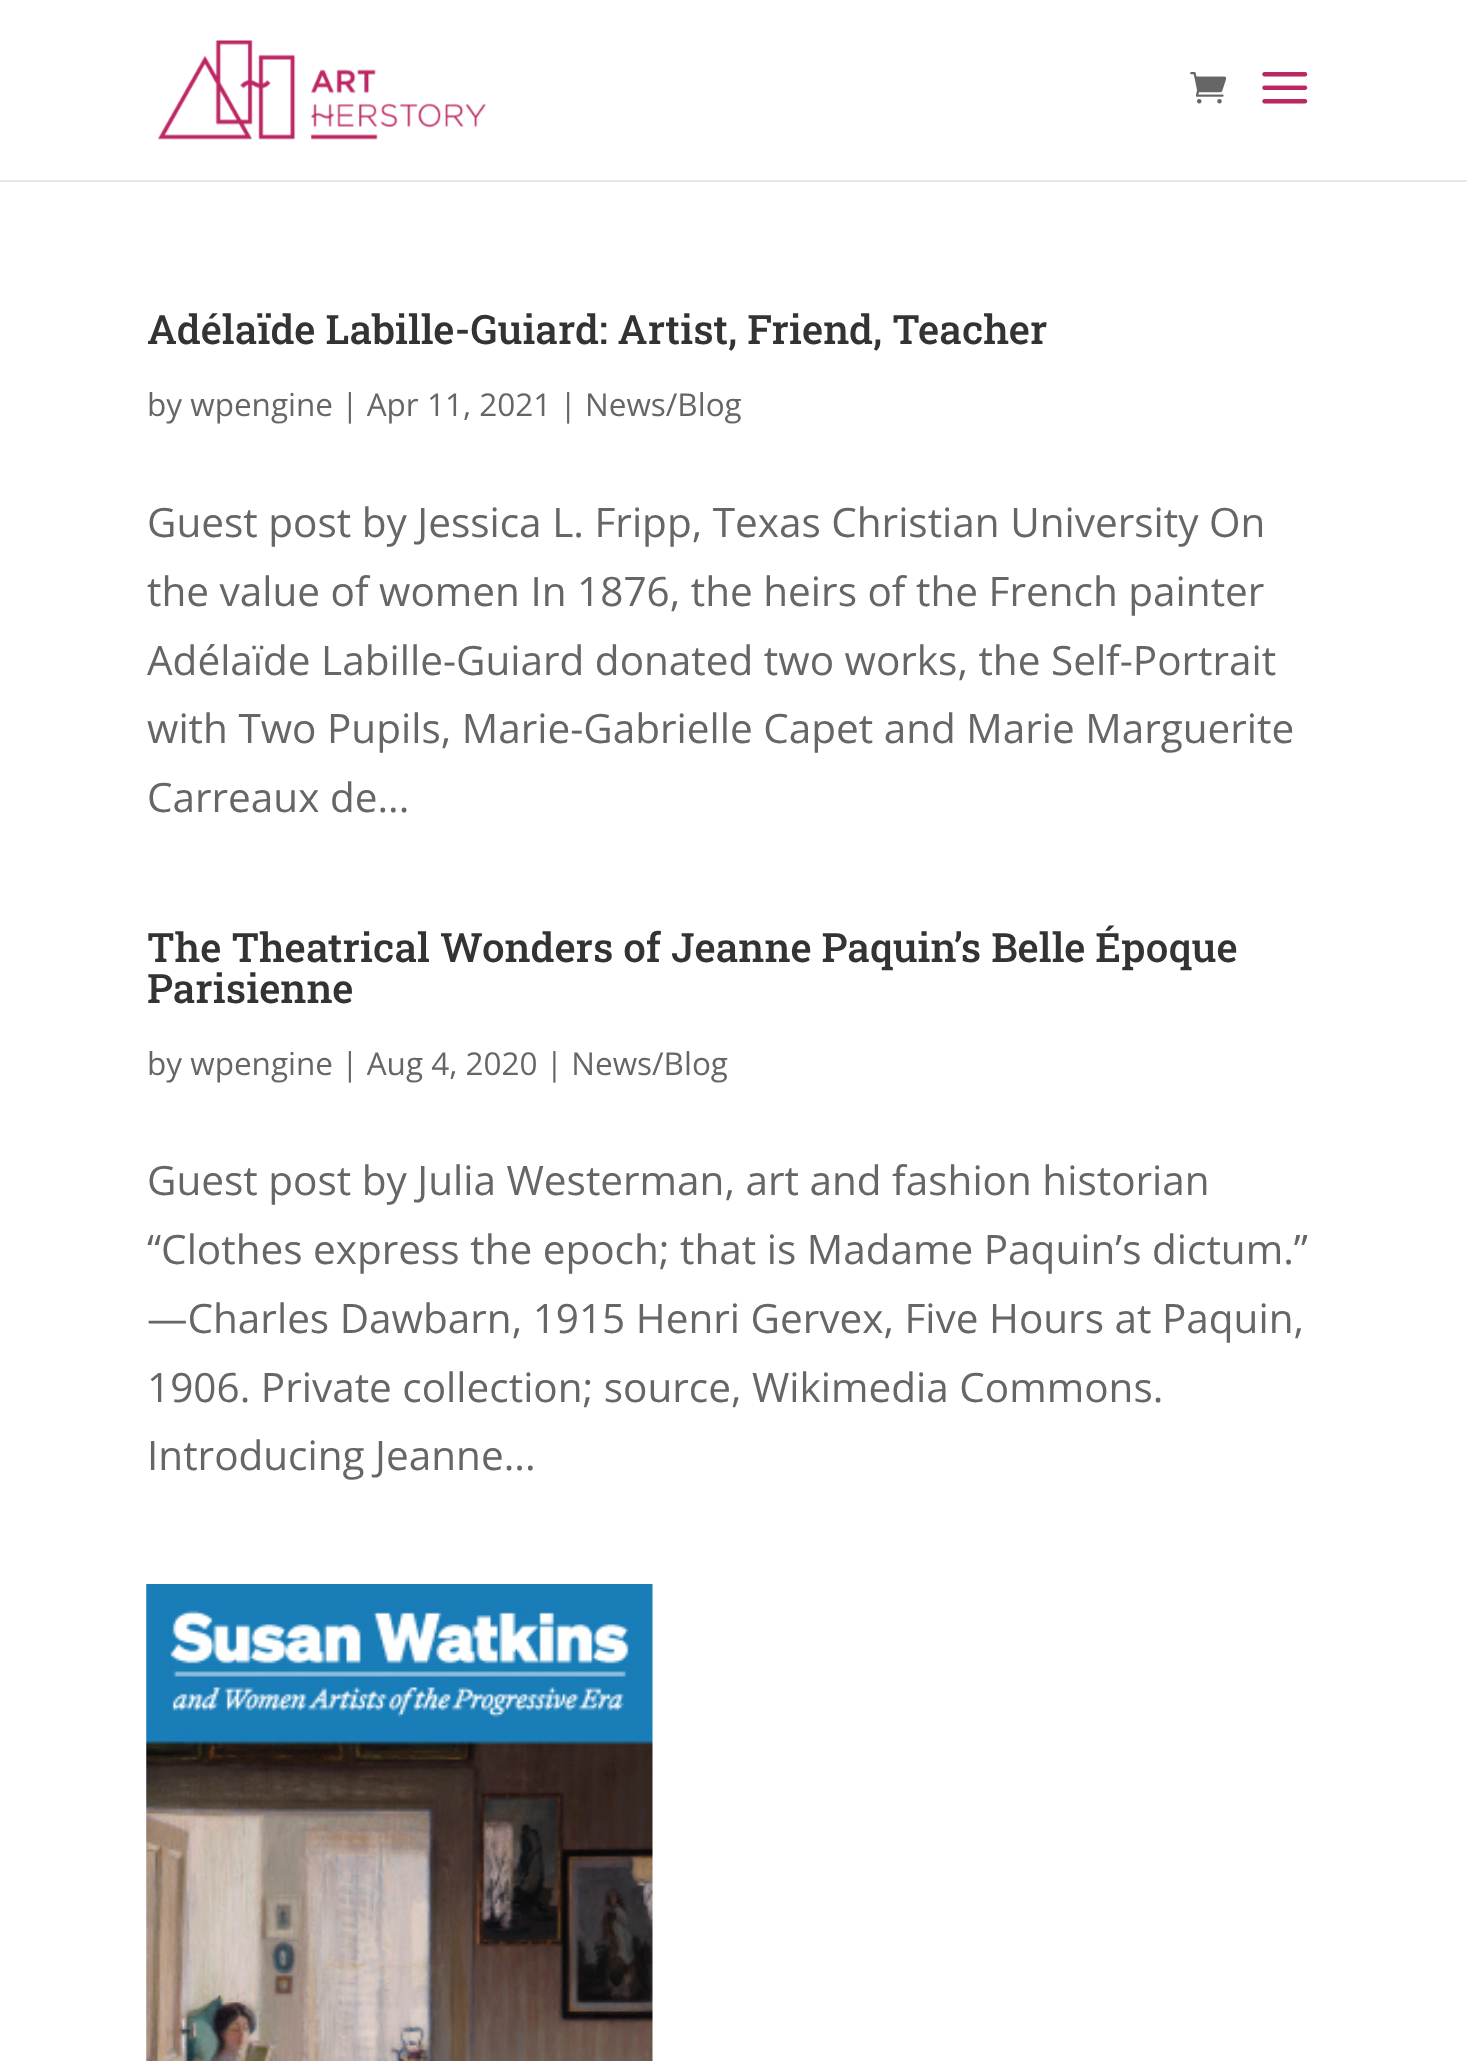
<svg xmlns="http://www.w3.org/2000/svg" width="1467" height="2061">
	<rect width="100%" height="100%" fill="#FFFFFF" />
	<rect x="0" y="180" width="1467" height="2" fill="#E6E6E6" />
	<image x="158" y="40" width="328" height="100" href="assets/img1.png" />
	<image x="1190" y="72" width="37" height="32" href="assets/img2.png" />
	<image x="1262" y="72" width="46" height="32" href="assets/img3.png" />
	<text x="147" y="344" font-family="Roboto Slab" font-size="40.5" font-weight="500" fill="#333333">Adélaïde Labille-Guiard: Artist, Friend, Teacher</text>
	<text x="147" y="416" font-family="Open Sans" font-size="31.5" fill="#666666">by wpengine | Apr 11, 2021 | News/Blog</text>
	<g font-family="Open Sans" font-size="40.5" fill="#666666">
		<text x="147" y="537">Guest post by Jessica L. Fripp, Texas Christian University On</text>
		<text x="147" y="606">the value of women In 1876, the heirs of the French painter</text>
		<text x="147" y="675">Adélaïde Labille-Guiard donated two works, the Self-Portrait</text>
		<text x="147" y="743">with Two Pupils, Marie-Gabrielle Capet and Marie Marguerite</text>
		<text x="147" y="812">Carreaux de...</text>
	</g>
	<g font-family="Roboto Slab" font-size="40.5" font-weight="500" fill="#333333">
		<text x="147" y="962">The Theatrical Wonders of Jeanne Paquin’s Belle Époque</text>
		<text x="147" y="1003">Parisienne</text>
	</g>
	<text x="147" y="1075" font-family="Open Sans" font-size="31.5" fill="#666666">by wpengine | Aug 4, 2020 | News/Blog</text>
	<g font-family="Open Sans" font-size="40.5" fill="#666666">
		<text x="147" y="1195">Guest post by Julia Westerman, art and fashion historian</text>
		<text x="147" y="1264">“Clothes express the epoch; that is Madame Paquin’s dictum.”</text>
		<text x="147" y="1333">—Charles Dawbarn, 1915 Henri Gervex, Five Hours at Paquin,</text>
		<text x="147" y="1402">1906. Private collection; source, Wikimedia Commons.</text>
		<text x="147" y="1470">Introducing Jeanne...</text>
	</g>
	<image x="146" y="1584" width="507" height="477" href="assets/img4.png" />
</svg>
